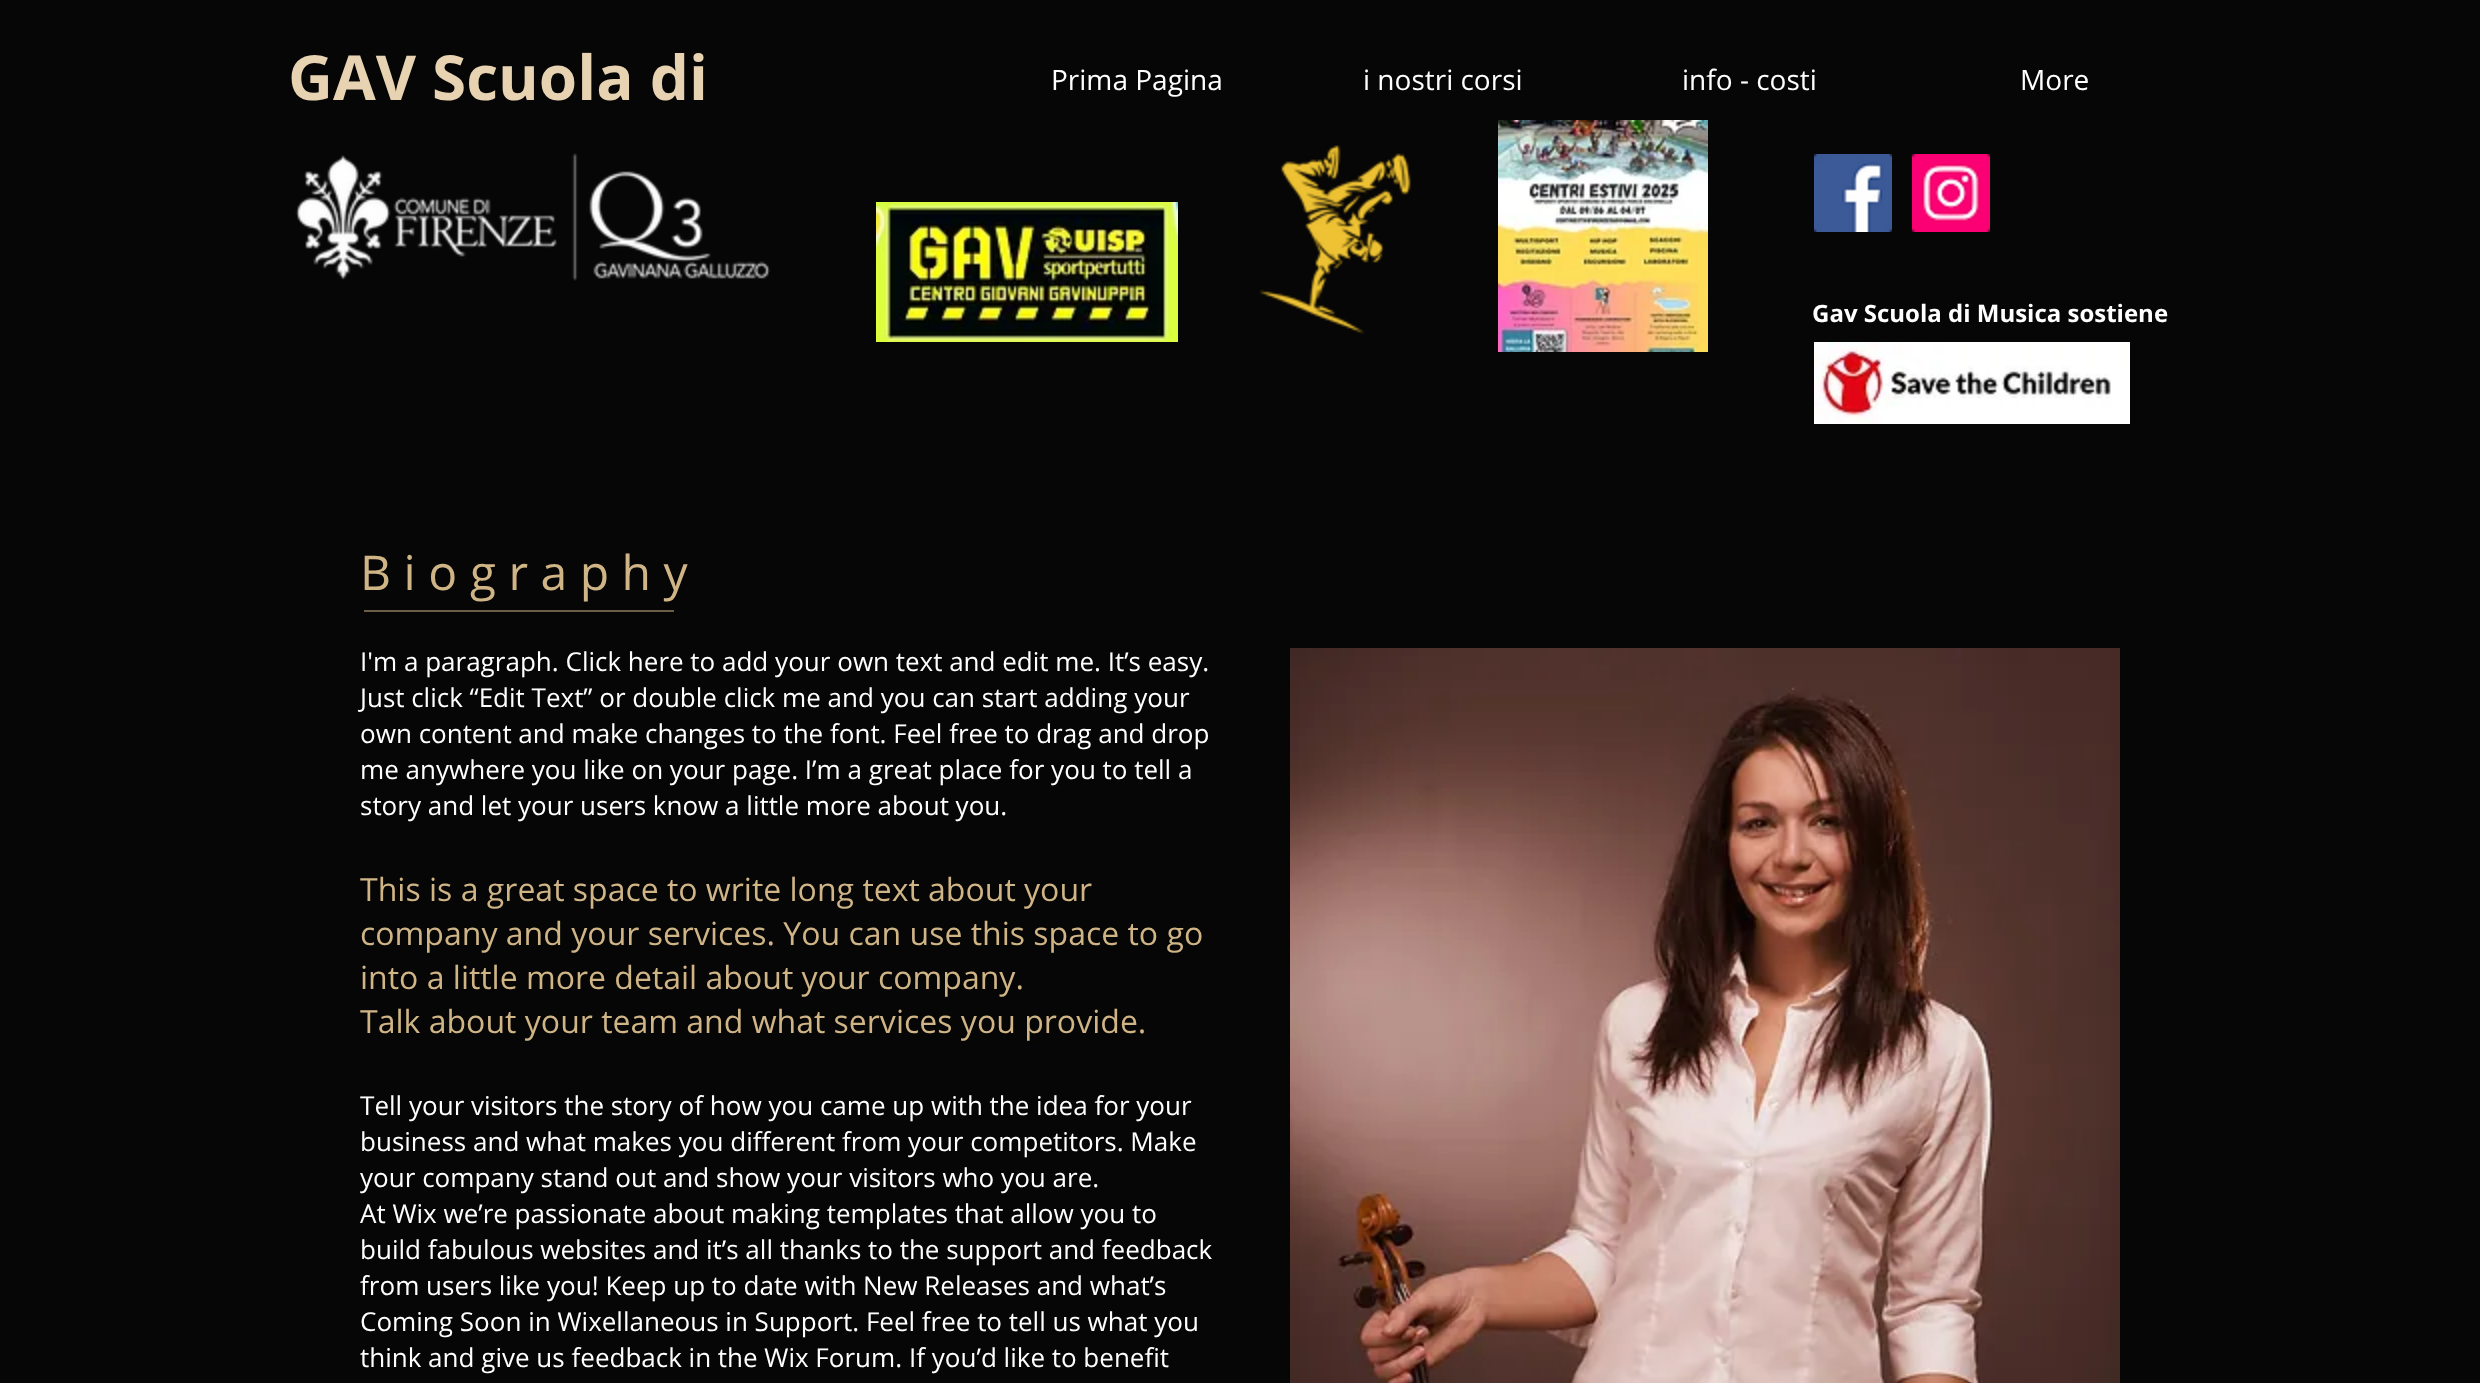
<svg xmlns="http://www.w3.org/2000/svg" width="2480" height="1383">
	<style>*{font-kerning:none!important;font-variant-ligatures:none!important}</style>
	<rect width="100%" height="100%" fill="#070606" />
	<text x="288" y="100" font-family="Open Sans" font-size="62" font-weight="700" fill="#E7D3B1">GAV Scuola di</text>
	<g font-family="Open Sans" font-size="28" fill="#FFFFFF">
		<text x="1051" y="90">Prima Pagina</text>
		<text x="1363" y="90">i nostri corsi</text>
		<text x="1682" y="90">info - costi</text>
		<text x="2020" y="90">More</text>
	</g>
	<image x="295" y="153" width="476" height="128" href="assets/img1.png" />
	<image x="1259" y="145" width="152" height="189" href="assets/img2.png" />
	<image x="1498" y="120" width="210" height="232" href="assets/img3.png" />
	<image x="1814" y="154" width="78" height="78" href="assets/img4.png" />
	<image x="1912" y="154" width="78" height="78" href="assets/img5.png" />
	<image x="876" y="202" width="302" height="140" href="assets/img6.png" />
	<text x="1812" y="322" font-family="Open Sans" font-size="24" font-weight="700" fill="#FFFFFF">Gav Scuola di Musica sostiene</text>
	<image x="1814" y="342" width="316" height="82" href="assets/img7.png" />
	<text x="360" y="590" font-family="Open Sans" font-size="48" fill="#CFB486">B i o g r a p h y</text>
	<rect x="364" y="610" width="310" height="2" fill="#6B5D46" />
	<g font-family="Open Sans" font-size="26" fill="#FFFFFF">
		<text x="360" y="671">I'm a paragraph. Click here to add your own text and edit me. It’s easy.</text>
		<text x="360" y="707">Just click “Edit Text” or double click me and you can start adding your</text>
		<text x="360" y="743">own content and make changes to the font. Feel free to drag and drop</text>
		<text x="360" y="779">me anywhere you like on your page. I’m a great place for you to tell a</text>
		<text x="360" y="815">story and let your users know a little more about you.</text>
	</g>
	<g font-family="Open Sans" font-size="32" fill="#CFB486">
		<text x="360" y="901">This is a great space to write long text about your</text>
		<text x="360" y="945">company and your services. You can use this space to go</text>
		<text x="360" y="989">into a little more detail about your company.</text>
		<text x="360" y="1033">Talk about your team and what services you provide.</text>
	</g>
	<g font-family="Open Sans" font-size="26" fill="#FFFFFF">
		<text x="360" y="1115">Tell your visitors the story of how you came up with the idea for your</text>
		<text x="360" y="1151">business and what makes you different from your competitors. Make</text>
		<text x="360" y="1187">your company stand out and show your visitors who you are.</text>
		<text x="360" y="1223">At Wix we’re passionate about making templates that allow you to</text>
		<text x="360" y="1259">build fabulous websites and it’s all thanks to the support and feedback</text>
		<text x="360" y="1295">from users like you! Keep up to date with New Releases and what’s</text>
		<text x="360" y="1331">Coming Soon in Wixellaneous in Support. Feel free to tell us what you</text>
		<text x="360" y="1367">think and give us feedback in the Wix Forum. If you’d like to benefit</text>
	</g>
	<image x="1290" y="648" width="830" height="735" href="assets/img8.png" />
</svg>
